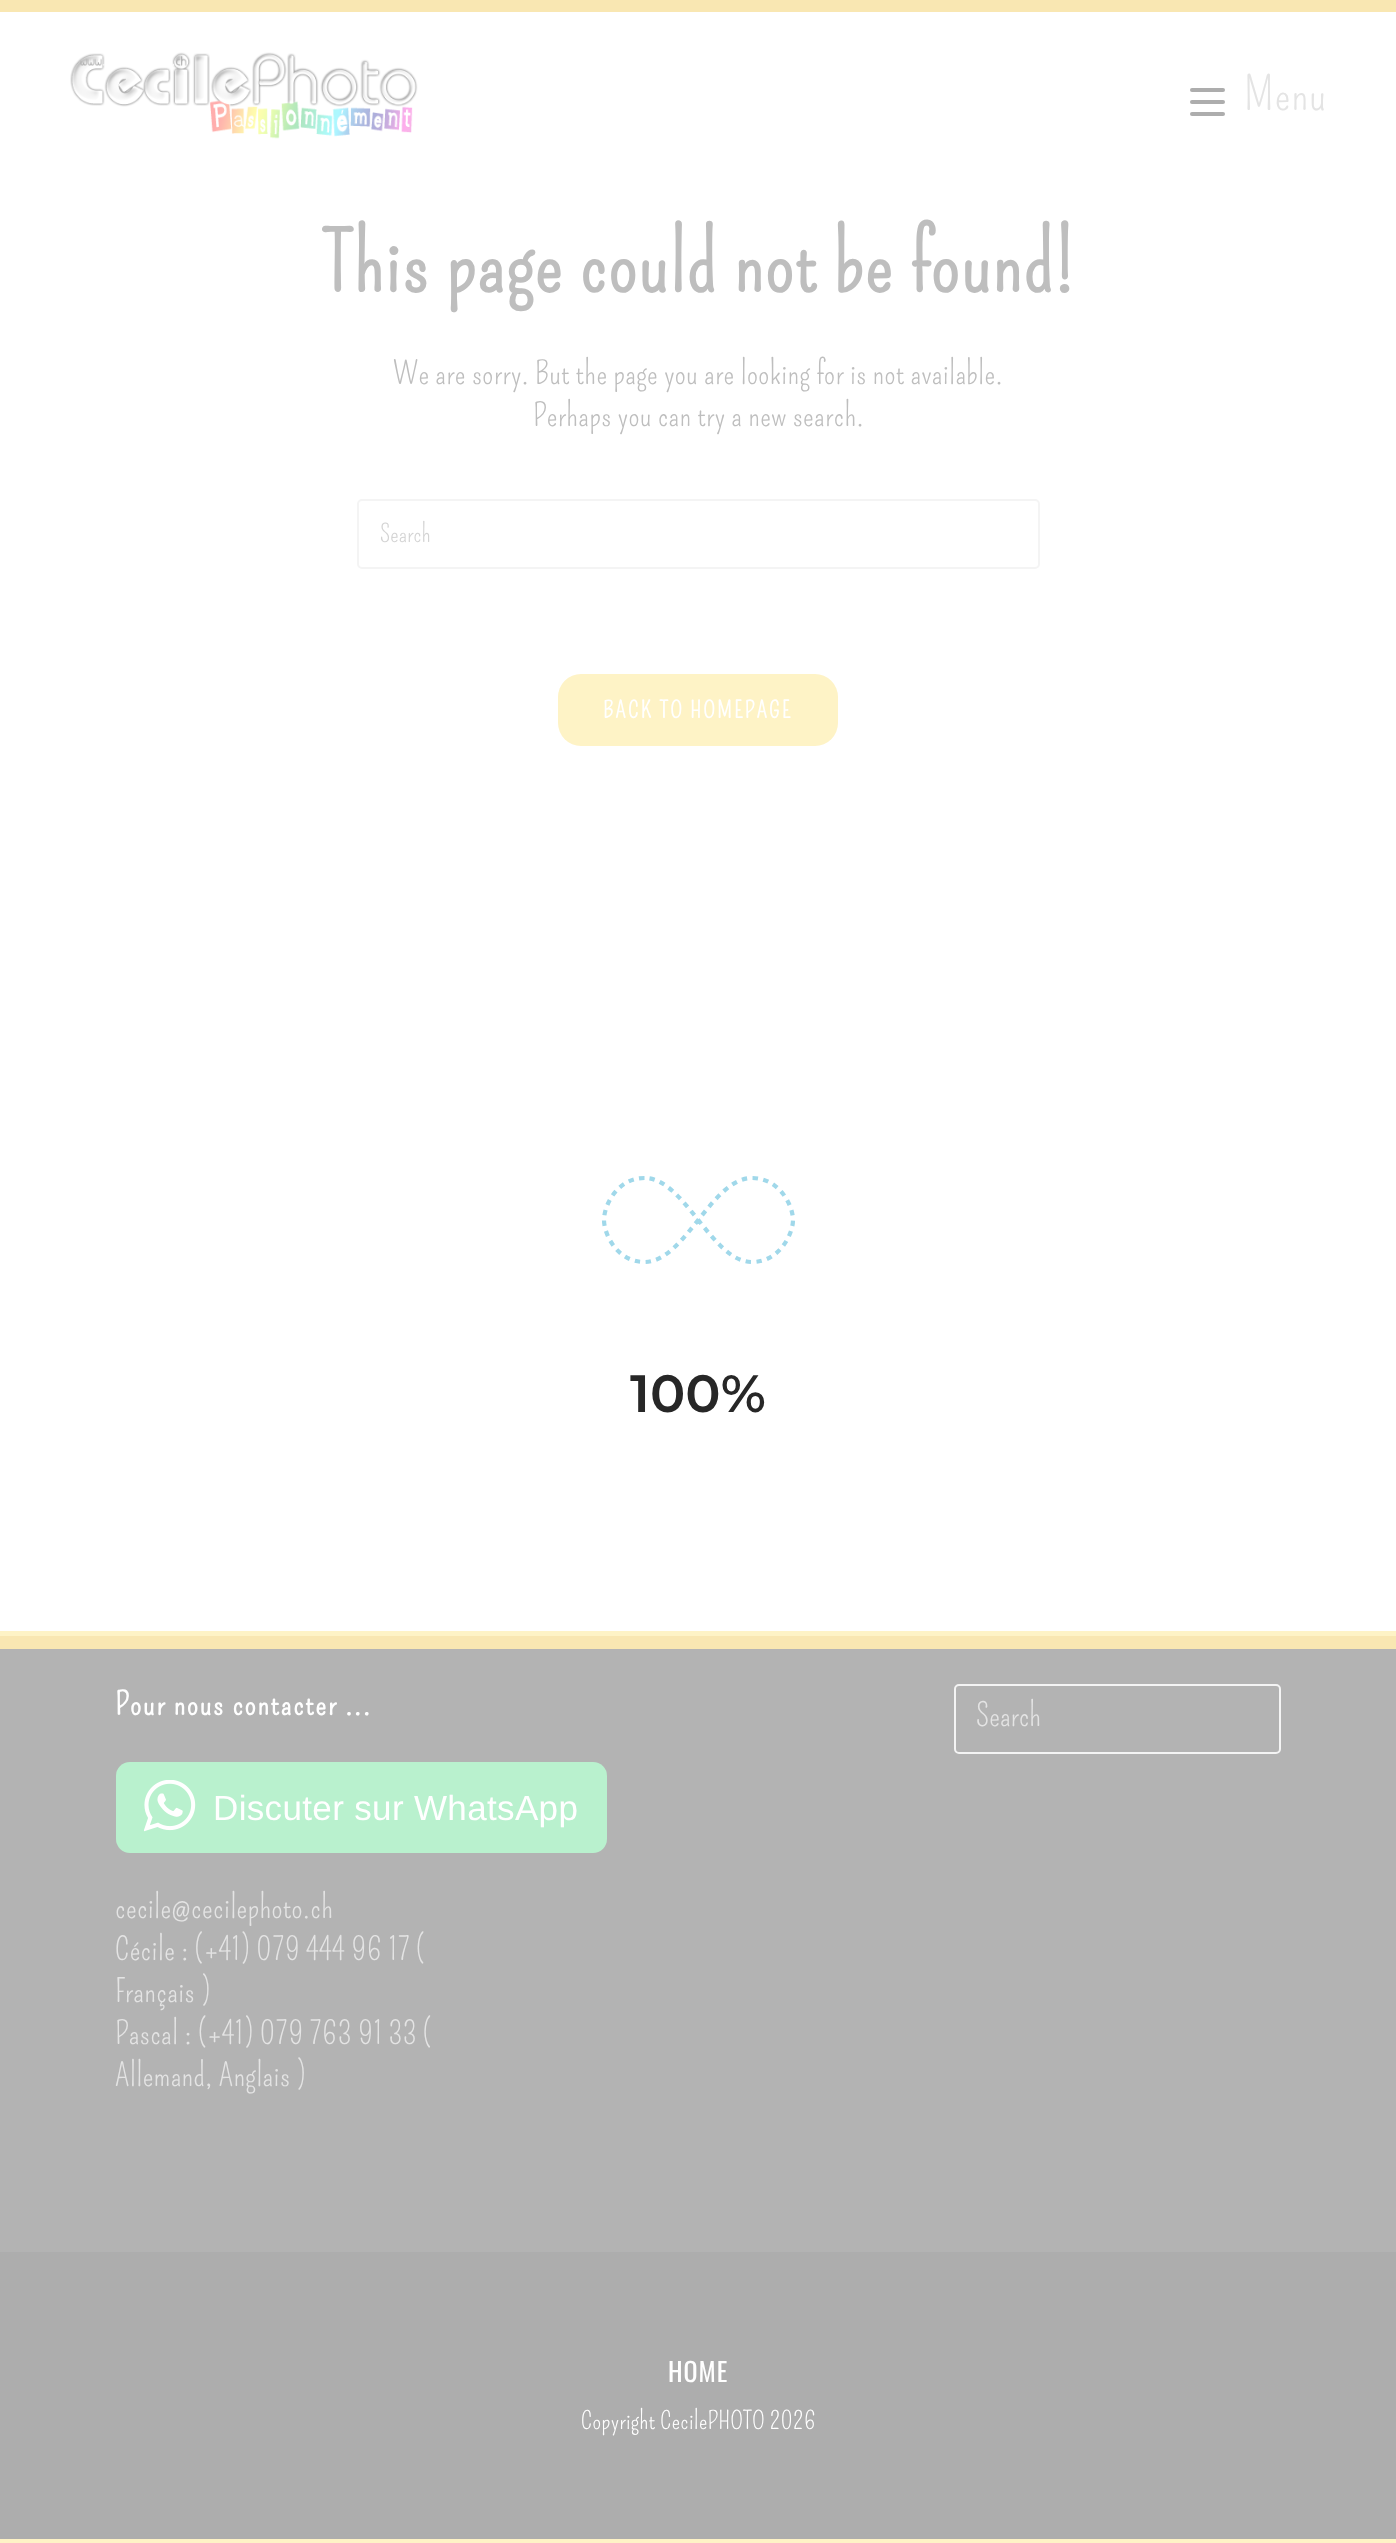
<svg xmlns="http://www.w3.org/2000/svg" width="1396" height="2543">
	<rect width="100%" height="100%" fill="#F9E7B2" />
	<rect x="0" y="12" width="1396" height="1619" fill="#FFFFFF" />
	<image x="70" y="52" width="348" height="87" href="assets/img1.png" />
	<rect x="1190" y="112" width="35" height="4" rx="2" fill="#ADADAD" />
	<rect x="1190" y="88" width="35" height="4" rx="2" fill="#ADADAD" />
	<rect x="1190" y="100" width="35" height="4" rx="2" fill="#ADADAD" />
	<text x="1244" y="110" font-family="Pompiere" font-size="46" letter-spacing="1" fill="#E4E4E4">Menu</text>
	<rect x="0" y="1631" width="1396" height="5" fill="#FEF3C6" />
	<text x="322" y="292" font-family="Pompiere" font-size="80.5" font-weight="700" letter-spacing="1.75" fill="#BEBEBE">This page could not be found!</text>
	<g font-family="Pompiere" font-size="31.5" letter-spacing="0.35" fill="#BEBEBE">
		<text x="393" y="384">We are sorry. But the page you are looking for is not available.</text>
		<text x="533" y="426">Perhaps you can try a new search.</text>
	</g>
	<rect x="358" y="500" width="681" height="68" rx="4" fill="none" stroke="#F4F4F4" stroke-width="2" />
	<text x="380" y="542" font-family="Pompiere" font-size="24.5" fill="#D3D3D3">Search</text>
	<rect x="558" y="674" width="280" height="72" rx="23" fill="#FEF3C6" />
	<text x="603" y="718" font-family="Pompiere" font-size="22.75" font-weight="700" letter-spacing="2.25" fill="#FFFFFF">BACK TO HOMEPAGE</text>
	<rect x="0" y="2539" width="1396" height="4" fill="#FEF3C6" />
	<rect x="0" y="1649" width="1396" height="603" fill="#B3B3B3" />
	<text x="115" y="1715" font-family="Pompiere" font-size="31.5" font-weight="700" letter-spacing="1.75" fill="#FFFFFF">Pour nous contacter ...</text>
	<rect x="116" y="1762" width="491" height="91" rx="14" fill="#B9F1CE" />
	<image x="144" y="1780" width="52" height="52" href="assets/img2.png" />
	<text x="213" y="1820" font-family="Liberation Sans" font-size="35" letter-spacing="0.35" fill="#FFFFFF">Discuter sur WhatsApp</text>
	<g font-family="Pompiere" font-size="31.5" letter-spacing="0.35" fill="#E4E4E4">
		<text x="115" y="1918">cecile@cecilephoto.ch</text>
		<text x="115" y="1960">Cécile : (+41) 079 444 96 17 (</text>
		<text x="115" y="2002">Français )</text>
		<text x="115" y="2044">Pascal : (+41) 079 763 91 33 (</text>
		<text x="115" y="2086">Allemand, Anglais )</text>
	</g>
	<rect x="955" y="1685" width="325" height="68" rx="4" fill="none" stroke="#F4F4F4" stroke-width="2" />
	<text x="976" y="1726" font-family="Pompiere" font-size="31.5" fill="#E4E4E4">Search</text>
	<rect x="0" y="2252" width="1396" height="287" fill="#ADADAD" />
	<text x="668" y="2382" font-family="Oswald" font-size="26" letter-spacing="1" fill="#FFFFFF">HOME</text>
	<text x="581" y="2429" font-family="Pompiere" font-size="24.5" letter-spacing="0.35" fill="#FFFFFF">Copyright CecilePHOTO 2026</text>
	<path d="M644.5 1178C617 1178 604 1205.5 604 1220C604 1234 617 1262 644.5 1262C685 1262 711.5 1178 752 1178C779.5 1178 793 1205.5 793 1220C793 1234 779.5 1262 752 1262C711.5 1262 685 1178 644.5 1178Z" fill="none" stroke="#A0D8EA" stroke-width="4.2" stroke-dasharray="5.39 5.39" />
	<text x="630" y="1412" font-family="Montserrat" font-size="52.5" font-weight="600" fill="#272727">100%</text>
</svg>
